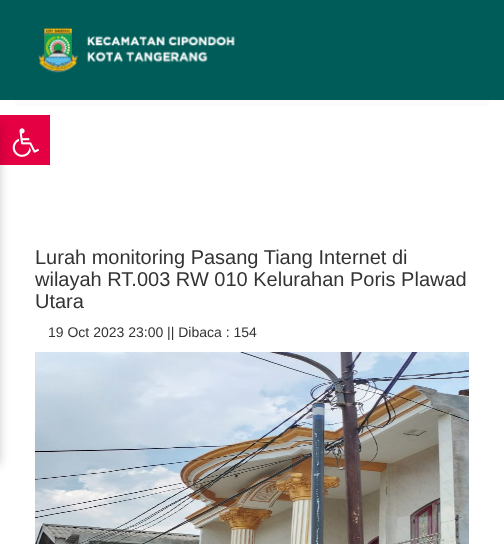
<svg xmlns="http://www.w3.org/2000/svg" width="504" height="544">
	<rect width="100%" height="100%" fill="#FFFFFF" />
	<rect x="15" y="70" width="474" height="36" rx="4" fill="#FBFBFB" />
	<rect x="0" y="0" width="504" height="100" fill="#005C58" />
	<image x="38" y="27" width="197" height="46" href="assets/img1.png" />
	<rect x="0" y="115" width="50" height="50" fill="#E40043" />
	<rect x="-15" y="125" width="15" height="340" fill="#000000" fill-opacity="0.2" filter="blur(5px)" />
	<image x="12" y="128" width="27" height="29" href="assets/img2.png" />
	<g font-family="Liberation Sans" font-size="20" fill="#333333">
		<text x="35" y="264">Lurah monitoring Pasang Tiang Internet di</text>
		<text x="35" y="286">wilayah RT.003 RW 010 Kelurahan Poris Plawad</text>
		<text x="35" y="308">Utara</text>
	</g>
	<text x="48" y="337" font-family="Liberation Sans" font-size="14" fill="#333333">19 Oct 2023 23:00 || Dibaca : 154</text>
	<image x="35" y="352" width="434" height="192" href="assets/img3.png" />
</svg>
